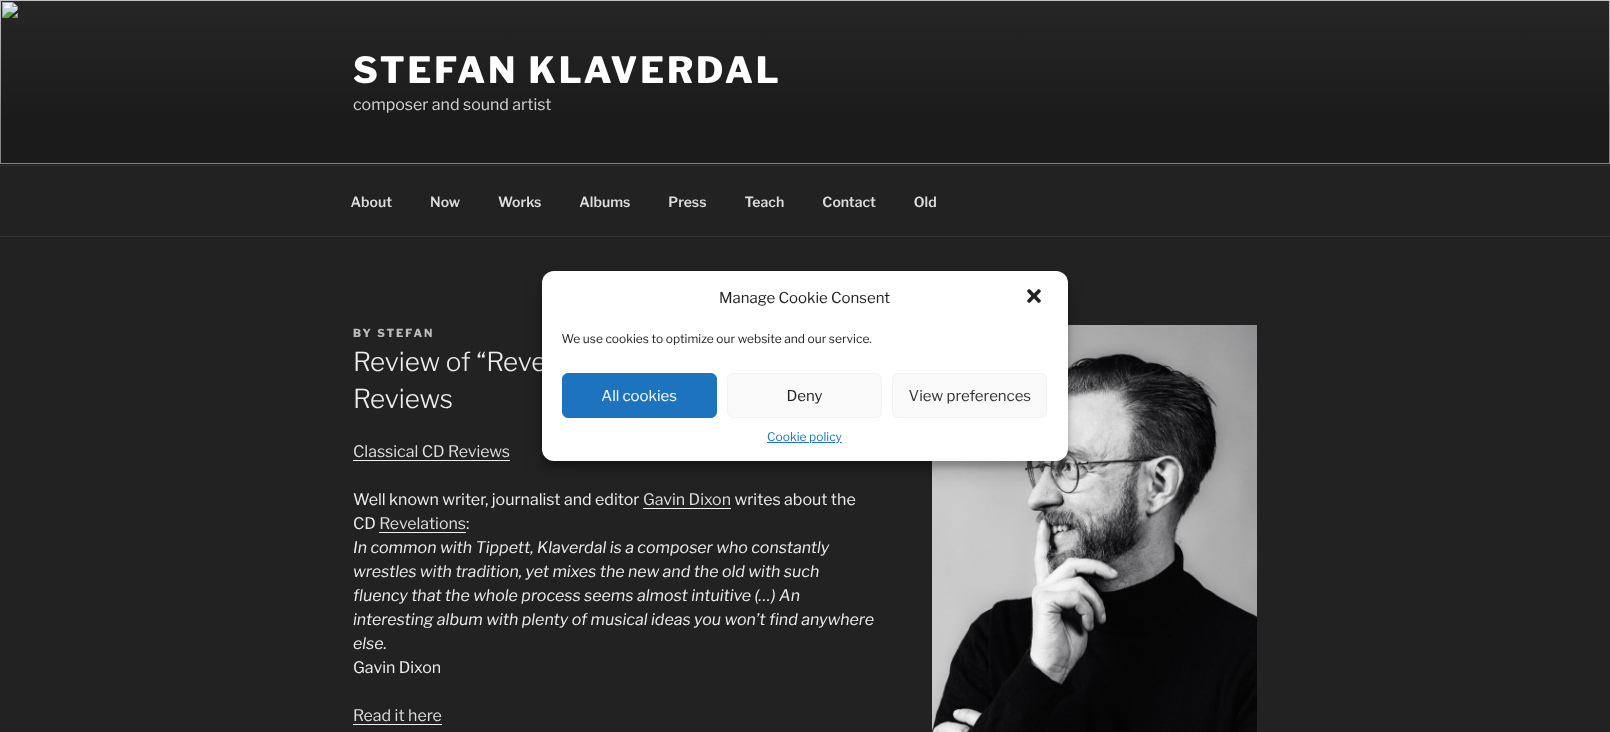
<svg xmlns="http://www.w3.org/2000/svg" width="1610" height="732">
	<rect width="100%" height="100%" fill="#FFFFFF" />
	<image x="0" y="0" width="1610" height="732" href="assets/img1.png" />
</svg>
